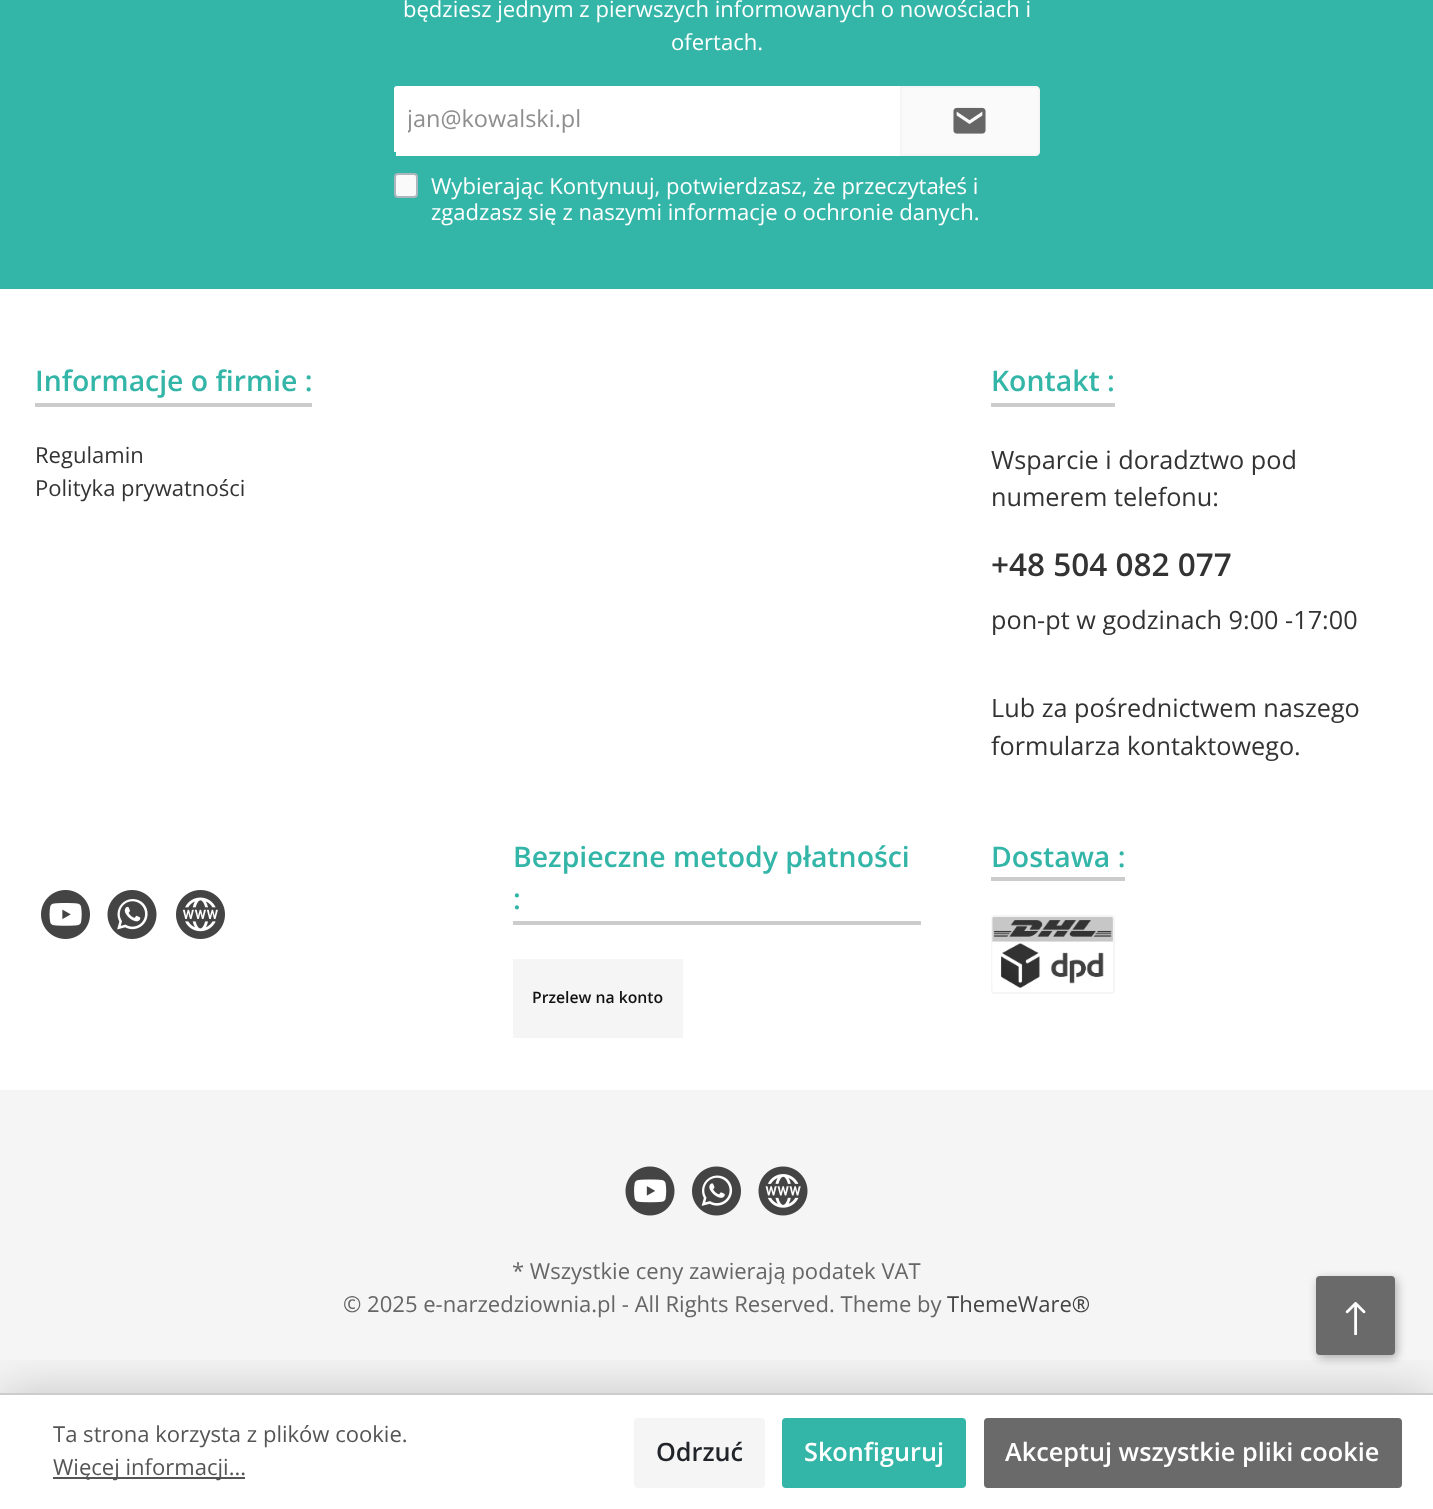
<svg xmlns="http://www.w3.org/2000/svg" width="1433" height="1509">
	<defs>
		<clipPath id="clip1"><rect x="408" y="103" width="478" height="32" /></clipPath>
		<clipPath id="clip2"><rect x="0" y="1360" width="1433" height="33" /></clipPath>
	</defs>
	<rect width="100%" height="100%" fill="#FFFFFF" />
	<rect x="0" y="0" width="1433" height="289" fill="#33B5A8" />
	<g font-family="Open Sans" font-size="22.05" fill="#FFFFFF">
		<text x="403" y="17">będziesz jednym z pierwszych informowanych o nowościach i</text>
		<text x="671" y="50">ofertach.</text>
	</g>
	<path d="M397 86H900V152H394V89C394 87 395 86 397 86Z" fill="#FFFFFF" />
	<rect x="396" y="152" width="504" height="4" fill="#FFFFFF" />
	<g clip-path="url(#clip1)">
		<text x="407" y="127" font-family="Open Sans" font-size="23.5" fill="#8E8E8E">jan@kowalski.pl</text>
	</g>
	<path d="M901 87H1036C1037.5 87 1039 88.5 1039 90V152C1039 153.5 1037.5 155 1036 155H901Z" fill="#FAFAFA" stroke="#F5F5F5" stroke-width="2" />
	<image x="953" y="107" width="33" height="27" href="assets/img1.png" />
	<rect x="395" y="174" width="22" height="23" rx="3" fill="#FAFAFA" stroke="#ADB5BD" stroke-width="2" />
	<g font-family="Open Sans" font-size="22.05" fill="#FFFFFF">
		<text x="431" y="194">Wybierając Kontynuuj, potwierdzasz, że przeczytałeś i</text>
		<text x="431" y="220">zgadzasz się z naszymi informacje o ochronie danych.</text>
	</g>
	<rect x="35" y="403" width="277" height="4" fill="#CCCCCC" />
	<text x="35" y="391" font-family="Open Sans" font-size="28.4" font-weight="600" fill="#33B5A8">Informacje o firmie :</text>
	<g font-family="Open Sans" font-size="22.05" fill="#333333">
		<text x="35" y="463">Regulamin</text>
		<text x="35" y="496">Polityka prywatności</text>
	</g>
	<rect x="991" y="403" width="124" height="4" fill="#CCCCCC" />
	<text x="991" y="391" font-family="Open Sans" font-size="28.4" font-weight="600" fill="#33B5A8">Kontakt :</text>
	<g font-family="Open Sans" font-size="25.25" fill="#333333">
		<text x="991" y="469">Wsparcie i doradztwo pod</text>
		<text x="991" y="506">numerem telefonu:</text>
	</g>
	<text x="991" y="576" font-family="Open Sans" font-size="31.5" font-weight="600" fill="#333333">+48 504 082 077</text>
	<g font-family="Open Sans" font-size="25.25" fill="#333333">
		<text x="991" y="629">pon-pt w godzinach 9:00 -17:00</text>
		<text x="991" y="717">Lub za pośrednictwem naszego</text>
		<text x="991" y="755">formularza kontaktowego.</text>
	</g>
	<rect x="513" y="921" width="408" height="4" fill="#CCCCCC" />
	<g font-family="Open Sans" font-size="28.4" font-weight="600" fill="#33B5A8">
		<text x="513" y="867">Bezpieczne metody płatności</text>
		<text x="513" y="909">:</text>
	</g>
	<rect x="513" y="959" width="170" height="79" fill="#F5F5F5" />
	<text x="532" y="1003" font-family="Open Sans" font-size="15.75" font-weight="600" fill="#111111">Przelew na konto</text>
	<rect x="991" y="877" width="134" height="4" fill="#CCCCCC" />
	<text x="991" y="867" font-family="Open Sans" font-size="28.4" font-weight="600" fill="#33B5A8">Dostawa :</text>
	<rect x="992" y="916" width="122" height="77" rx="3" fill="none" stroke="#F5F5F5" stroke-width="2" />
	<image x="992" y="917" width="121" height="75" href="assets/img2.png" />
	<image x="41" y="890" width="49" height="49" href="assets/img3.png" />
	<image x="107" y="890" width="50" height="49" href="assets/img4.png" />
	<image x="176" y="890" width="49" height="49" href="assets/img5.png" />
	<rect x="0" y="1090" width="1433" height="303" fill="#F5F5F5" />
	<image x="625" y="1166" width="50" height="50" href="assets/img6.png" />
	<image x="692" y="1166" width="49" height="50" href="assets/img7.png" />
	<image x="758" y="1166" width="50" height="50" href="assets/img8.png" />
	<g font-family="Open Sans" font-size="22.05" fill="#666666">
		<text x="512" y="1279">* Wszystkie ceny zawierają podatek VAT</text>
		<text x="343" y="1312">© 2025 e-narzedziownia.pl - All Rights Reserved. Theme by</text>
	</g>
	<text x="947" y="1312" font-family="Open Sans" font-size="22.05" fill="#444444">ThemeWare®</text>
	<rect x="1318" y="1279" width="79" height="79" rx="4" fill="#000000" fill-opacity="0.3" filter="blur(5px)" />
	<rect x="1317" y="1277" width="77" height="77" rx="3" fill="#6A6A6A" stroke="#6A6A6A" stroke-width="2" />
	<image x="1345" y="1302" width="21" height="33" href="assets/img9.png" />
	<g clip-path="url(#clip2)">
		<rect x="0" y="1393" width="1433" height="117" fill="#000000" fill-opacity="0.2" filter="blur(26px)" />
	</g>
	<rect x="0" y="1393" width="1433" height="2" fill="#CCCCCC" />
	<text x="53" y="1442" font-family="Open Sans" font-size="22.05" fill="#555555">Ta strona korzysta z plików cookie.</text>
	<rect x="53" y="1477" width="192" height="2" fill="#555555" />
	<text x="53" y="1475" font-family="Open Sans" font-size="22.05" fill="#555555">Więcej informacji...</text>
	<rect x="634" y="1418" width="131" height="70" rx="4" fill="#F5F5F5" />
	<text x="656" y="1461" font-family="Open Sans" font-size="25.25" font-weight="600" fill="#212529">Odrzuć</text>
	<rect x="783" y="1419" width="182" height="68" rx="3" fill="#33B5A8" stroke="#33B5A8" stroke-width="2" />
	<text x="804" y="1461" font-family="Open Sans" font-size="25.25" font-weight="600" fill="#FFFFFF">Skonfiguruj</text>
	<rect x="985" y="1419" width="416" height="68" rx="3" fill="#6A6A6A" stroke="#6A6A6A" stroke-width="2" />
	<text x="1005" y="1461" font-family="Open Sans" font-size="25.25" font-weight="600" fill="#FFFFFF">Akceptuj wszystkie pliki cookie</text>
</svg>
